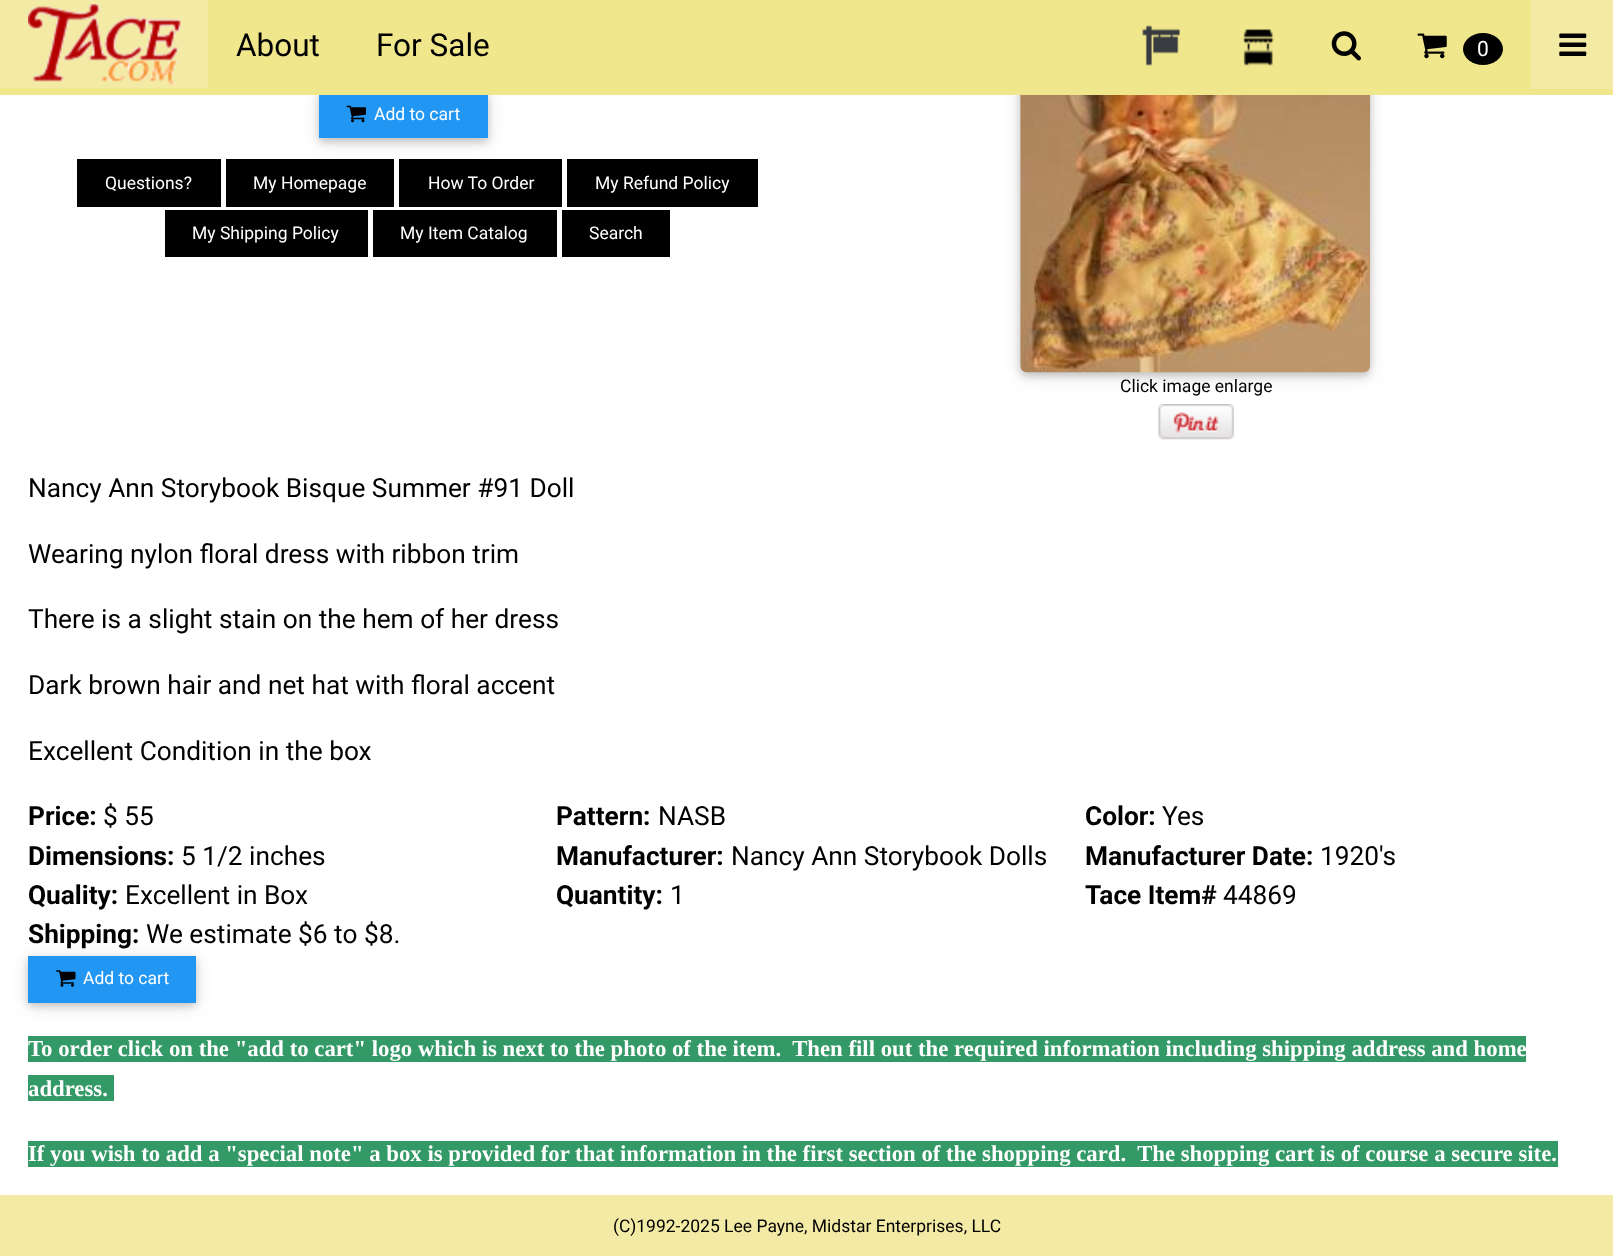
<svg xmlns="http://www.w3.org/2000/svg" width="1613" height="1256">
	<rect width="100%" height="100%" fill="#FFFFFF" />
	<rect x="319" y="95" width="169" height="47" fill="#000000" fill-opacity="0.12" filter="blur(9px)" />
	<rect x="319" y="95" width="169" height="47" fill="#000000" fill-opacity="0.16" filter="blur(3.5px)" />
	<rect x="1020" y="26" width="350" height="350" rx="7" fill="#000000" fill-opacity="0.12" filter="blur(9px)" />
	<rect x="1020" y="26" width="350" height="350" rx="7" fill="#000000" fill-opacity="0.16" filter="blur(3.5px)" />
	<rect x="0" y="0" width="1613" height="95" fill="#F0E68C" />
	<rect x="0" y="0" width="208" height="88" fill="#F3EBA5" />
	<image x="28" y="4" width="153" height="81" href="assets/img1.png" />
	<g font-family="Roboto" font-size="31.5" fill="#000000">
		<text x="236" y="56">About</text>
		<text x="376" y="56">For Sale</text>
	</g>
	<image x="1142" y="25" width="38" height="41" href="assets/img2.png" />
	<image x="1242" y="29" width="33" height="37" href="assets/img3.png" />
	<image x="1331" y="31" width="30" height="30" href="assets/img4.png" />
	<image x="1417" y="33" width="30" height="26" href="assets/img5.png" />
	<ellipse cx="1483" cy="49" rx="20" ry="16" fill="#000000" />
	<text x="1477" y="56" font-family="Roboto" font-size="21" fill="#FFFFFF">0</text>
	<rect x="1531" y="0" width="82" height="89" fill="#F3EBA5" />
	<image x="1559" y="33" width="28" height="23" href="assets/img6.png" />
	<rect x="319" y="95" width="169" height="43" fill="#2196F3" />
	<image x="346" y="105" width="20" height="18" href="assets/img7.png" />
	<text x="374" y="120" font-family="Roboto" font-size="17.5" fill="#FFFFFF">Add to cart</text>
	<rect x="77" y="159" width="144" height="48" fill="#000000" />
	<text x="105" y="189" font-family="Roboto" font-size="17.5" fill="#FFFFFF">Questions?</text>
	<rect x="226" y="159" width="168" height="48" fill="#000000" />
	<text x="253" y="189" font-family="Roboto" font-size="17.5" fill="#FFFFFF">My Homepage</text>
	<rect x="399" y="159" width="163" height="48" fill="#000000" />
	<text x="428" y="189" font-family="Roboto" font-size="17.5" fill="#FFFFFF">How To Order</text>
	<rect x="567" y="159" width="191" height="48" fill="#000000" />
	<text x="595" y="189" font-family="Roboto" font-size="17.5" fill="#FFFFFF">My Refund Policy</text>
	<rect x="165" y="210" width="203" height="47" fill="#000000" />
	<text x="192" y="239" font-family="Roboto" font-size="17.5" fill="#FFFFFF">My Shipping Policy</text>
	<rect x="373" y="210" width="184" height="47" fill="#000000" />
	<text x="400" y="239" font-family="Roboto" font-size="17.5" fill="#FFFFFF">My Item Catalog</text>
	<rect x="562" y="210" width="108" height="47" fill="#000000" />
	<text x="589" y="239" font-family="Roboto" font-size="17.5" fill="#FFFFFF">Search</text>
	<image x="1020" y="95" width="351" height="278" href="assets/img8.png" />
	<text x="1120" y="392" font-family="Roboto" font-size="17.5" fill="#000000">Click image enlarge</text>
	<image x="1158" y="404" width="76" height="36" href="assets/img9.png" />
	<g font-family="Roboto" font-size="26.25" fill="#000000">
		<text x="28" y="497">Nancy Ann Storybook Bisque Summer #91 Doll</text>
		<text x="28" y="563">Wearing nylon floral dress with ribbon trim</text>
		<text x="28" y="628">There is a slight stain on the hem of her dress</text>
		<text x="28" y="694">Dark brown hair and net hat with floral accent</text>
		<text x="28" y="760">Excellent Condition in the box</text>
	</g>
	<text x="28" y="825" font-family="Roboto" font-size="26.25" font-weight="700" fill="#000000">Price:</text>
	<text x="103" y="825" font-family="Roboto" font-size="26.25" fill="#000000">$ 55</text>
	<text x="556" y="825" font-family="Roboto" font-size="26.25" font-weight="700" fill="#000000">Pattern:</text>
	<text x="658" y="825" font-family="Roboto" font-size="26.25" fill="#000000">NASB</text>
	<text x="1085" y="825" font-family="Roboto" font-size="26.25" font-weight="700" fill="#000000">Color:</text>
	<text x="1162" y="825" font-family="Roboto" font-size="26.25" fill="#000000">Yes</text>
	<text x="28" y="865" font-family="Roboto" font-size="26.25" font-weight="700" fill="#000000">Dimensions:</text>
	<text x="181" y="865" font-family="Roboto" font-size="26.25" fill="#000000">5 1/2 inches</text>
	<text x="556" y="865" font-family="Roboto" font-size="26.25" font-weight="700" fill="#000000">Manufacturer:</text>
	<text x="731" y="865" font-family="Roboto" font-size="26.25" fill="#000000">Nancy Ann Storybook Dolls</text>
	<text x="1085" y="865" font-family="Roboto" font-size="26.25" font-weight="700" fill="#000000">Manufacturer Date:</text>
	<text x="1320" y="865" font-family="Roboto" font-size="26.25" fill="#000000">1920's</text>
	<text x="28" y="904" font-family="Roboto" font-size="26.25" font-weight="700" fill="#000000">Quality:</text>
	<text x="125" y="904" font-family="Roboto" font-size="26.25" fill="#000000">Excellent in Box</text>
	<text x="556" y="904" font-family="Roboto" font-size="26.25" font-weight="700" fill="#000000">Quantity:</text>
	<text x="670" y="904" font-family="Roboto" font-size="26.25" fill="#000000">1</text>
	<text x="1085" y="904" font-family="Roboto" font-size="26.25" font-weight="700" fill="#000000">Tace Item#</text>
	<text x="1223" y="904" font-family="Roboto" font-size="26.25" fill="#000000">44869</text>
	<text x="28" y="943" font-family="Roboto" font-size="26.25" font-weight="700" fill="#000000">Shipping:</text>
	<text x="146" y="943" font-family="Roboto" font-size="26.25" fill="#000000">We estimate $6 to $8.</text>
	<rect x="28" y="959" width="168" height="47" fill="#000000" fill-opacity="0.12" filter="blur(9px)" />
	<rect x="28" y="959" width="168" height="47" fill="#000000" fill-opacity="0.16" filter="blur(3.5px)" />
	<rect x="28" y="956" width="168" height="47" fill="#2196F3" />
	<image x="56" y="970" width="20" height="17" href="assets/img10.png" />
	<text x="83" y="984" font-family="Roboto" font-size="17.5" fill="#FFFFFF">Add to cart</text>
	<rect x="28" y="1036" width="1498" height="26" fill="#339966" />
	<text x="28" y="1056" font-family="Liberation Serif" font-size="22.75" font-weight="700" fill="#FFFFFF" xml:space="preserve">To order click on the "add to cart" logo which is next to the photo of the item.  Then fill out the required information including shipping address and home</text>
	<rect x="28" y="1075" width="86" height="26" fill="#339966" />
	<text x="28" y="1096" font-family="Liberation Serif" font-size="22.75" font-weight="700" fill="#FFFFFF">address.</text>
	<rect x="28" y="1141" width="1530" height="26" fill="#339966" />
	<text x="28" y="1161" font-family="Liberation Serif" font-size="22.75" font-weight="700" fill="#FFFFFF" xml:space="preserve">If you wish to add a "special note" a box is provided for that information in the first section of the shopping card.  The shopping cart is of course a secure site.</text>
	<rect x="0" y="1195" width="1613" height="61" fill="#F3EBA5" />
	<text x="613" y="1232" font-family="Roboto" font-size="17.5" fill="#000000">(C)1992-2025 Lee Payne, Midstar Enterprises, LLC</text>
</svg>
